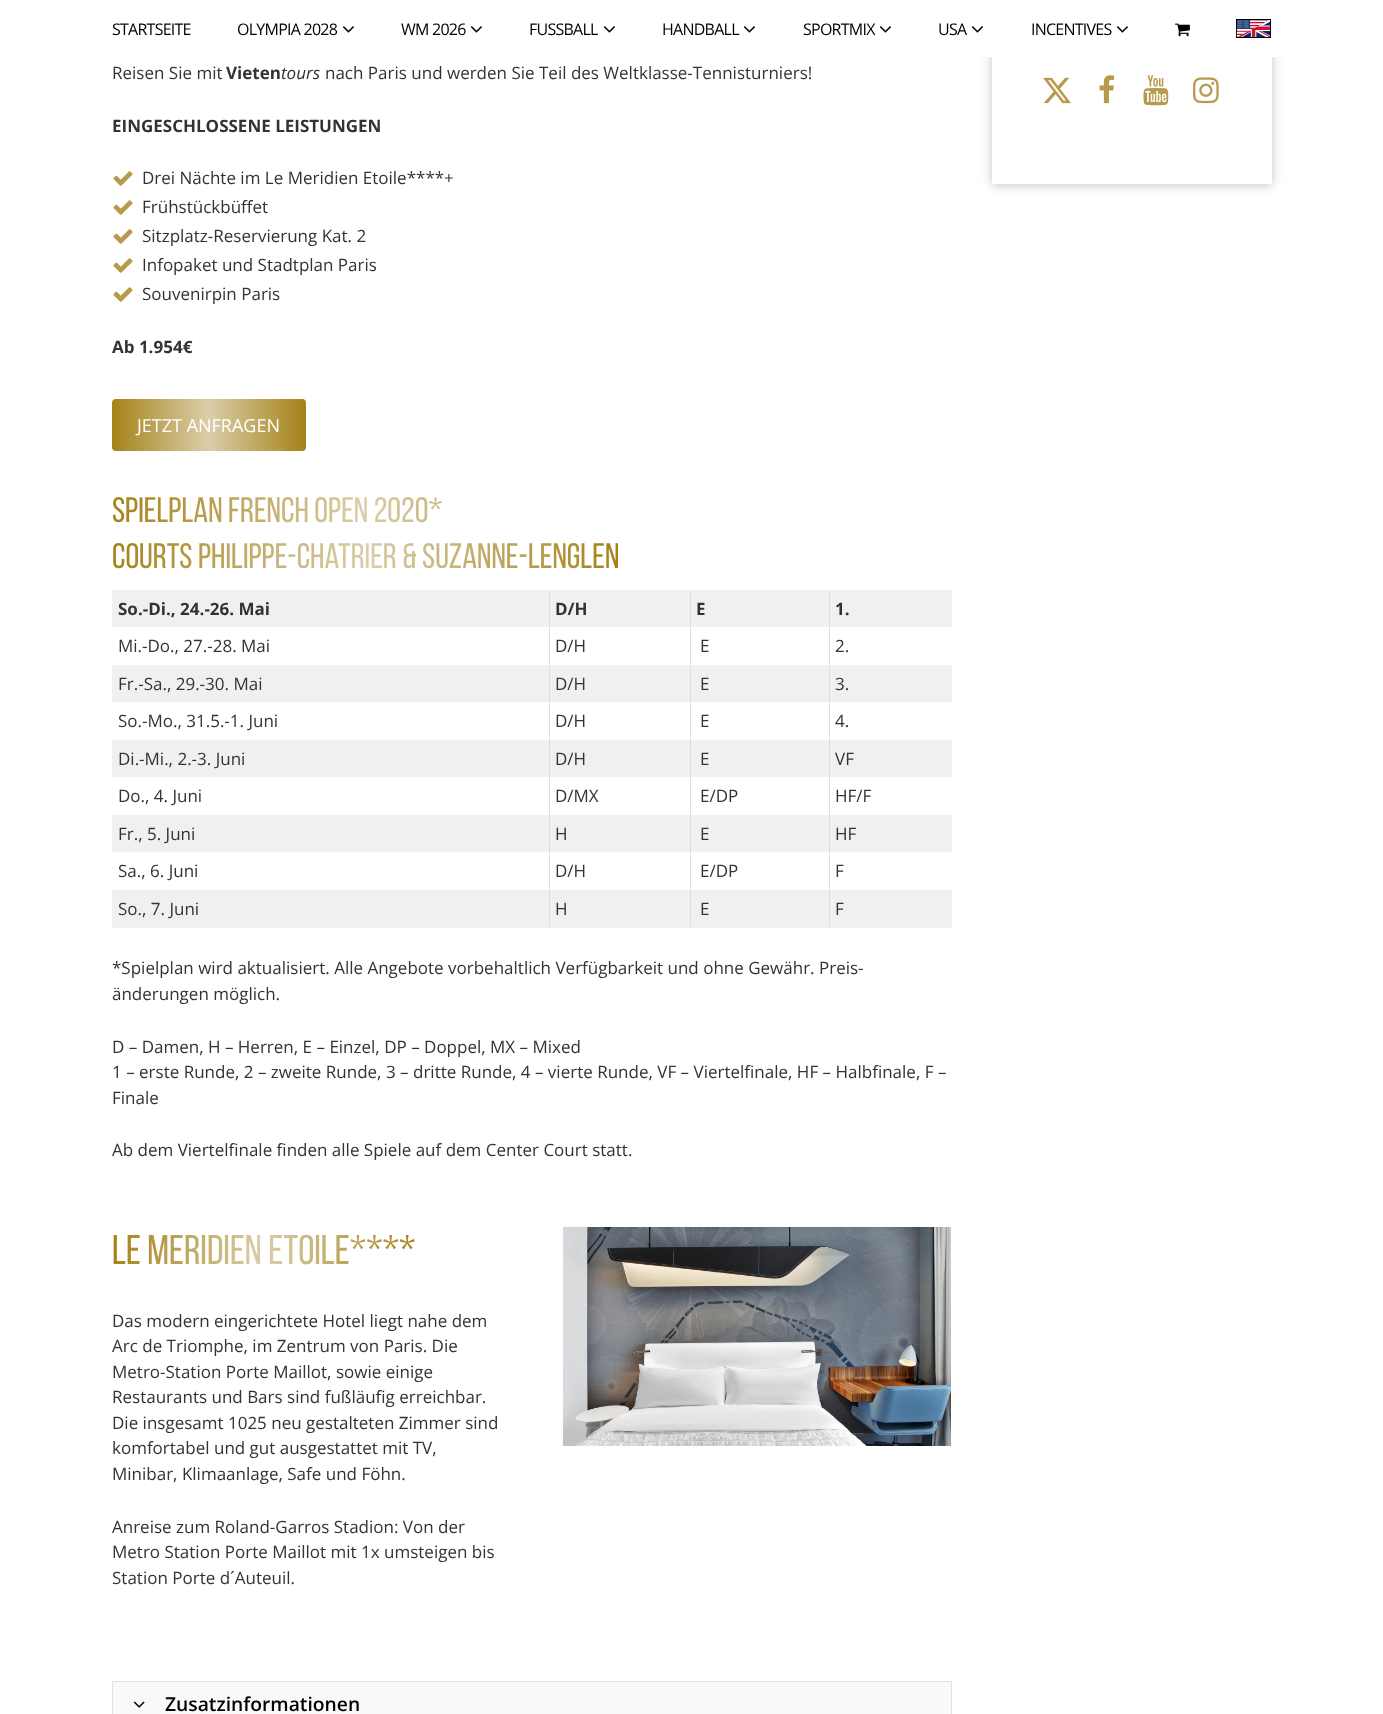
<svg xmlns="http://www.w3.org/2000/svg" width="1383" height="1714">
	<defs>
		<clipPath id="clip1"><path d="M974 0H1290V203H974ZM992-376H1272V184H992Z" clip-rule="evenodd" /></clipPath>
		<linearGradient id="g1" gradientUnits="userSpaceOnUse" x1="112" y1="491" x2="618" y2="491"><stop offset="0" stop-color="#A58218" /><stop offset="0.5" stop-color="#DACEAA" /><stop offset="1" stop-color="#A58218" /></linearGradient>
		<linearGradient id="g2" gradientUnits="userSpaceOnUse" x1="112" y1="1227" x2="416" y2="1227"><stop offset="0" stop-color="#A58218" /><stop offset="0.5" stop-color="#DACEAA" /><stop offset="1" stop-color="#A58218" /></linearGradient>
		<linearGradient id="g3" gradientUnits="userSpaceOnUse" x1="112" y1="399" x2="306" y2="399"><stop offset="0" stop-color="#A58218" /><stop offset="0.5" stop-color="#DACEAA" /><stop offset="1" stop-color="#A58218" /></linearGradient>
	</defs>
	<rect width="100%" height="100%" fill="#FFFFFF" />
	<g clip-path="url(#clip1)">
		<rect x="992" y="-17" width="280" height="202" fill="#A3A3A3" fill-opacity="0.64" filter="blur(5.5px)" />
	</g>
	<rect x="983" y="0" width="298" height="57" fill="#FFFFFF" />
	<g font-family="Open Sans" font-size="16" letter-spacing="-0.75" fill="#000000">
		<text x="112" y="35">STARTSEITE</text>
		<text x="237" y="35">OLYMPIA 2028</text>
	</g>
	<image x="342" y="26" width="12" height="7" href="assets/img1.png" />
	<text x="401" y="35" font-family="Open Sans" font-size="16" letter-spacing="-0.75" fill="#000000">WM 2026</text>
	<image x="470" y="26" width="12" height="7" href="assets/img1.png" />
	<text x="529" y="35" font-family="Open Sans" font-size="16" letter-spacing="-0.75" fill="#000000">FUSSBALL</text>
	<image x="603" y="26" width="12" height="7" href="assets/img1.png" />
	<text x="662" y="35" font-family="Open Sans" font-size="16" letter-spacing="-0.75" fill="#000000">HANDBALL</text>
	<image x="743" y="26" width="12" height="7" href="assets/img1.png" />
	<text x="803" y="35" font-family="Open Sans" font-size="16" letter-spacing="-0.75" fill="#000000">SPORTMIX</text>
	<image x="879" y="26" width="12" height="7" href="assets/img1.png" />
	<text x="938" y="35" font-family="Open Sans" font-size="16" letter-spacing="-0.75" fill="#000000">USA</text>
	<image x="971" y="26" width="12" height="7" href="assets/img1.png" />
	<text x="1031" y="35" font-family="Open Sans" font-size="16" letter-spacing="-0.75" fill="#000000">INCENTIVES</text>
	<image x="1116" y="26" width="12" height="7" href="assets/img1.png" />
	<image x="1175" y="23" width="15" height="14" href="assets/img2.png" />
	<image x="1236" y="19" width="35" height="19" href="assets/img3.png" />
	<text x="112" y="79" font-family="Open Sans" font-size="17" fill="#333333">Reisen Sie mit</text>
	<text x="226" y="79" font-family="Open Sans" font-size="17" font-weight="700" fill="#333333">Vieten</text>
	<text x="281" y="79" font-family="Open Sans" font-size="17" font-style="italic" fill="#333333">tours</text>
	<text x="325" y="79" font-family="Open Sans" font-size="17" fill="#333333">nach Paris und werden Sie Teil des Weltklasse-Tennisturniers!</text>
	<text x="112" y="132" font-family="Open Sans" font-size="17" font-weight="700" fill="#333333">EINGESCHLOSSENE LEISTUNGEN</text>
	<image x="113" y="171" width="20" height="15" href="assets/img4.png" />
	<text x="142" y="184" font-family="Open Sans" font-size="17" fill="#333333">Drei Nächte im Le Meridien Etoile****+</text>
	<image x="113" y="200" width="20" height="15" href="assets/img4.png" />
	<text x="142" y="213" font-family="Open Sans" font-size="17" fill="#333333">Frühstückbüffet</text>
	<image x="113" y="229" width="20" height="15" href="assets/img4.png" />
	<text x="142" y="242" font-family="Open Sans" font-size="17" fill="#333333">Sitzplatz-Reservierung Kat. 2</text>
	<image x="113" y="258" width="20" height="15" href="assets/img4.png" />
	<text x="142" y="271" font-family="Open Sans" font-size="17" fill="#333333">Infopaket und Stadtplan Paris</text>
	<image x="113" y="287" width="20" height="15" href="assets/img4.png" />
	<text x="142" y="300" font-family="Open Sans" font-size="17" fill="#333333">Souvenirpin Paris</text>
	<text x="112" y="353" font-family="Open Sans" font-size="17" font-weight="700" fill="#333333">Ab 1.954€</text>
	<rect x="112" y="399" width="194" height="52" rx="4" fill="url(#g3)" />
	<text x="137" y="432" font-family="Open Sans" font-size="18" fill="#FFFFFF">JETZT ANFRAGEN</text>
	<g font-family="Bebas Neue" font-size="35.25" fill="url(#g1)">
		<text x="112" y="522">Spielplan FRENCH OPEN 2020*</text>
		<text x="112" y="568">Courts Philippe-Chatrier &amp; Suzanne-Lenglen</text>
	</g>
	<rect x="112" y="890" width="840" height="38" fill="#F0F0F0" />
	<rect x="112" y="590" width="840" height="37" fill="#F0F0F0" />
	<text x="118" y="615" font-family="Open Sans" font-size="17" font-weight="700" fill="#333333">So.-Di., 24.-26. Mai</text>
	<path d="M549 627V590L550 591V626Z" fill="#DDDDDD" />
	<text x="555" y="615" font-family="Open Sans" font-size="17" font-weight="700" fill="#333333">D/H</text>
	<path d="M690 627V590L691 591V626Z" fill="#DDDDDD" />
	<text x="696" y="615" font-family="Open Sans" font-size="17" font-weight="700" fill="#333333">E</text>
	<path d="M829 627V590L830 591V626Z" fill="#DDDDDD" />
	<text x="835" y="615" font-family="Open Sans" font-size="17" font-weight="700" fill="#333333">1.</text>
	<text x="118" y="652" font-family="Open Sans" font-size="17" fill="#333333">Mi.-Do., 27.-28. Mai</text>
	<path d="M549 665V627L550 628V664Z" fill="#DDDDDD" />
	<text x="555" y="652" font-family="Open Sans" font-size="17" fill="#333333">D/H</text>
	<path d="M690 665V627L691 628V664Z" fill="#DDDDDD" />
	<text x="700" y="652" font-family="Open Sans" font-size="17" fill="#333333">E</text>
	<path d="M829 665V627L830 628V664Z" fill="#DDDDDD" />
	<text x="835" y="652" font-family="Open Sans" font-size="17" fill="#333333">2.</text>
	<rect x="112" y="665" width="840" height="37" fill="#F0F0F0" />
	<text x="118" y="690" font-family="Open Sans" font-size="17" fill="#333333">Fr.-Sa., 29.-30. Mai</text>
	<path d="M549 702V665L550 666V701Z" fill="#DDDDDD" />
	<text x="555" y="690" font-family="Open Sans" font-size="17" fill="#333333">D/H</text>
	<path d="M690 702V665L691 666V701Z" fill="#DDDDDD" />
	<text x="700" y="690" font-family="Open Sans" font-size="17" fill="#333333">E</text>
	<path d="M829 702V665L830 666V701Z" fill="#DDDDDD" />
	<g font-family="Open Sans" font-size="17" fill="#333333">
		<text x="835" y="690">3.</text>
		<text x="118" y="727">So.-Mo., 31.5.-1. Juni</text>
	</g>
	<path d="M549 740V702L550 703V739Z" fill="#DDDDDD" />
	<text x="555" y="727" font-family="Open Sans" font-size="17" fill="#333333">D/H</text>
	<path d="M690 740V702L691 703V739Z" fill="#DDDDDD" />
	<text x="700" y="727" font-family="Open Sans" font-size="17" fill="#333333">E</text>
	<path d="M829 740V702L830 703V739Z" fill="#DDDDDD" />
	<text x="835" y="727" font-family="Open Sans" font-size="17" fill="#333333">4.</text>
	<rect x="112" y="740" width="840" height="37" fill="#F0F0F0" />
	<text x="118" y="765" font-family="Open Sans" font-size="17" fill="#333333">Di.-Mi., 2.-3. Juni</text>
	<path d="M549 777V740L550 741V776Z" fill="#DDDDDD" />
	<text x="555" y="765" font-family="Open Sans" font-size="17" fill="#333333">D/H</text>
	<path d="M690 777V740L691 741V776Z" fill="#DDDDDD" />
	<text x="700" y="765" font-family="Open Sans" font-size="17" fill="#333333">E</text>
	<path d="M829 777V740L830 741V776Z" fill="#DDDDDD" />
	<g font-family="Open Sans" font-size="17" fill="#333333">
		<text x="835" y="765">VF</text>
		<text x="118" y="802">Do., 4. Juni</text>
	</g>
	<path d="M549 815V777L550 778V814Z" fill="#DDDDDD" />
	<text x="555" y="802" font-family="Open Sans" font-size="17" fill="#333333">D/MX</text>
	<path d="M690 815V777L691 778V814Z" fill="#DDDDDD" />
	<text x="700" y="802" font-family="Open Sans" font-size="17" fill="#333333">E/DP</text>
	<path d="M829 815V777L830 778V814Z" fill="#DDDDDD" />
	<text x="835" y="802" font-family="Open Sans" font-size="17" fill="#333333">HF/F</text>
	<rect x="112" y="815" width="840" height="37" fill="#F0F0F0" />
	<text x="118" y="840" font-family="Open Sans" font-size="17" fill="#333333">Fr., 5. Juni</text>
	<path d="M549 852V815L550 816V851Z" fill="#DDDDDD" />
	<text x="555" y="840" font-family="Open Sans" font-size="17" fill="#333333">H</text>
	<path d="M690 852V815L691 816V851Z" fill="#DDDDDD" />
	<text x="700" y="840" font-family="Open Sans" font-size="17" fill="#333333">E</text>
	<path d="M829 852V815L830 816V851Z" fill="#DDDDDD" />
	<g font-family="Open Sans" font-size="17" fill="#333333">
		<text x="835" y="840">HF</text>
		<text x="118" y="877">Sa., 6. Juni</text>
	</g>
	<path d="M549 890V852L550 853V889Z" fill="#DDDDDD" />
	<text x="555" y="877" font-family="Open Sans" font-size="17" fill="#333333">D/H</text>
	<path d="M690 890V852L691 853V889Z" fill="#DDDDDD" />
	<text x="700" y="877" font-family="Open Sans" font-size="17" fill="#333333">E/DP</text>
	<path d="M829 890V852L830 853V889Z" fill="#DDDDDD" />
	<g font-family="Open Sans" font-size="17" fill="#333333">
		<text x="835" y="877">F</text>
		<text x="118" y="915">So., 7. Juni</text>
	</g>
	<path d="M549 927V890L550 891V926Z" fill="#DDDDDD" />
	<text x="555" y="915" font-family="Open Sans" font-size="17" fill="#333333">H</text>
	<path d="M690 927V890L691 891V926Z" fill="#DDDDDD" />
	<text x="700" y="915" font-family="Open Sans" font-size="17" fill="#333333">E</text>
	<path d="M829 927V890L830 891V926Z" fill="#DDDDDD" />
	<g font-family="Open Sans" font-size="17" fill="#333333">
		<text x="835" y="915">F</text>
		<text x="112" y="974">*Spielplan wird aktualisiert. Alle Angebote vorbehaltlich Verfügbarkeit und ohne Gewähr. Preis-</text>
		<text x="112" y="1000">änderungen möglich.</text>
		<text x="112" y="1053">D – Damen, H – Herren, E – Einzel, DP – Doppel, MX – Mixed</text>
		<text x="112" y="1078">1 – erste Runde, 2 – zweite Runde, 3 – dritte Runde, 4 – vierte Runde, VF – Viertelfinale, HF – Halbfinale, F –</text>
		<text x="112" y="1104">Finale</text>
		<text x="112" y="1156">Ab dem Viertelfinale finden alle Spiele auf dem Center Court statt.</text>
	</g>
	<text x="112" y="1264" font-family="Bebas Neue" font-size="41.5" fill="url(#g2)">Le Meridien Etoile****</text>
	<g font-family="Open Sans" font-size="17" fill="#333333">
		<text x="112" y="1327">Das modern eingerichtete Hotel liegt nahe dem</text>
		<text x="112" y="1352">Arc de Triomphe, im Zentrum von Paris. Die</text>
		<text x="112" y="1378">Metro-Station Porte Maillot, sowie einige</text>
		<text x="112" y="1403">Restaurants und Bars sind fußläufig erreichbar.</text>
		<text x="112" y="1429">Die insgesamt 1025 neu gestalteten Zimmer sind</text>
		<text x="112" y="1454">komfortabel und gut ausgestattet mit TV,</text>
		<text x="112" y="1480">Minibar, Klimaanlage, Safe und Föhn.</text>
		<text x="112" y="1533">Anreise zum Roland-Garros Stadion: Von der</text>
		<text x="112" y="1558">Metro Station Porte Maillot mit 1x umsteigen bis</text>
		<text x="112" y="1584">Station Porte d´Auteuil.</text>
	</g>
	<image x="563" y="1227" width="388" height="219" href="assets/img5.png" />
	<rect x="112.5" y="1681.5" width="839" height="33" fill="#F9F9F9" stroke="#E2E2E2" />
	<image x="133" y="1701" width="12" height="7" href="assets/img6.png" />
	<text x="165" y="1711" font-family="Open Sans" font-size="19.25" font-weight="600" fill="#000000">Zusatzinformationen</text>
	<image x="1043" y="77" width="28" height="27" href="assets/img7.png" />
	<image x="1099" y="75" width="16" height="29" href="assets/img8.png" />
	<image x="1143" y="75" width="26" height="31" href="assets/img9.png" />
	<image x="1193" y="77" width="26" height="27" href="assets/img10.png" />
</svg>
